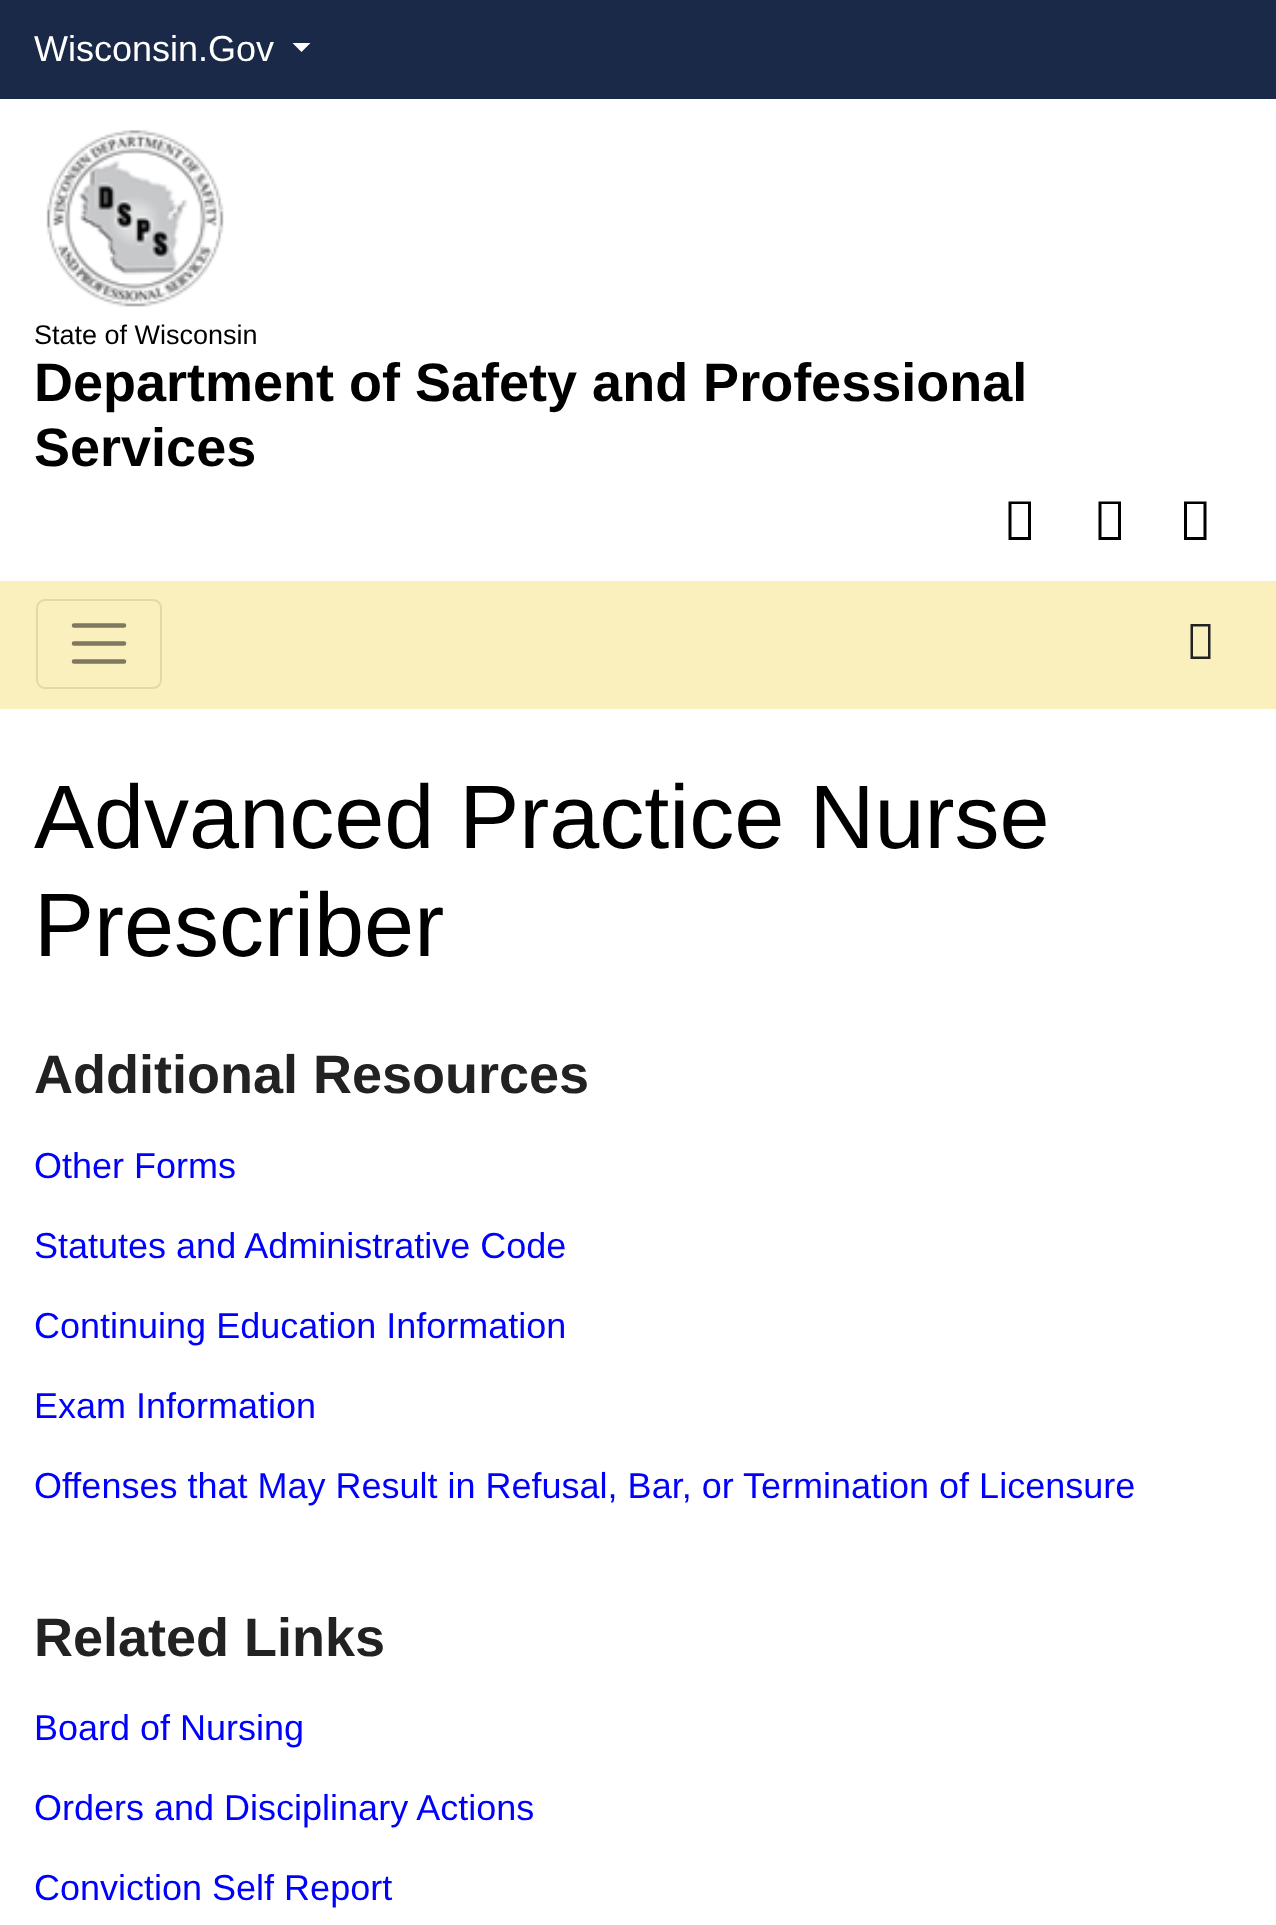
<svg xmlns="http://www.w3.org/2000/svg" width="1276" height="1925">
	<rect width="100%" height="100%" fill="#FFFFFF" />
	<rect x="0" y="0" width="1276" height="99" fill="#192947" />
	<text x="34" y="61" font-family="Liberation Sans" font-size="36" fill="#FFFFFF">Wisconsin.Gov</text>
	<path d="M292.5 43H310.5L301.5 52Z" fill="#FFFFFF" />
	<image x="46" y="130" width="178" height="177" href="assets/img1.png" />
	<text x="34" y="344" font-family="Liberation Sans" font-size="27" fill="#000000">State of Wisconsin</text>
	<g font-family="Liberation Sans" font-size="54" font-weight="700" fill="#000000">
		<text x="34" y="401">Department of Safety and Professional</text>
		<text x="34" y="466">Services</text>
	</g>
	<path d="M1008.5 540V501.5H1031V540ZM1011.5 537H1028V504H1011.5Z" fill="#000000" />
	<path d="M1098.5 540V501.5H1121V540ZM1101.5 537H1118V504H1101.5Z" fill="#000000" />
	<path d="M1184 540V501.5H1206.5V540ZM1187 537H1203.5V504H1187Z" fill="#000000" />
	<rect x="0" y="581" width="1276" height="128" fill="#FAF0BE" />
	<rect x="37" y="600" width="124" height="88" rx="8" fill="none" stroke="#E1D8AB" stroke-width="2" />
	<path d="M74 625.5H124M74 643.5H124M74 661.5H124" fill="none" stroke="#7D785F" stroke-width="4.5" stroke-linecap="round" />
	<path d="M1190.5 659V624H1210.5V659ZM1193 656.5H1208V626.5H1193Z" fill="#222222" />
	<g font-family="Liberation Sans" font-size="90" fill="#000000">
		<text x="34" y="848">Advanced Practice Nurse</text>
		<text x="34" y="956">Prescriber</text>
	</g>
	<text x="34" y="1093" font-family="Liberation Sans" font-size="54" font-weight="700" fill="#222222">Additional Resources</text>
	<g font-family="Liberation Sans" font-size="36" fill="#0000FF">
		<text x="34" y="1178">Other Forms</text>
		<text x="34" y="1258">Statutes and Administrative Code</text>
		<text x="34" y="1338">Continuing Education Information</text>
		<text x="34" y="1418">Exam Information</text>
		<text x="34" y="1498">Offenses that May Result in Refusal, Bar, or Termination of Licensure</text>
	</g>
	<text x="34" y="1656" font-family="Liberation Sans" font-size="54" font-weight="700" fill="#222222">Related Links</text>
	<g font-family="Liberation Sans" font-size="36" fill="#0000FF">
		<text x="34" y="1740">Board of Nursing</text>
		<text x="34" y="1820">Orders and Disciplinary Actions</text>
		<text x="34" y="1900">Conviction Self Report</text>
	</g>
</svg>
